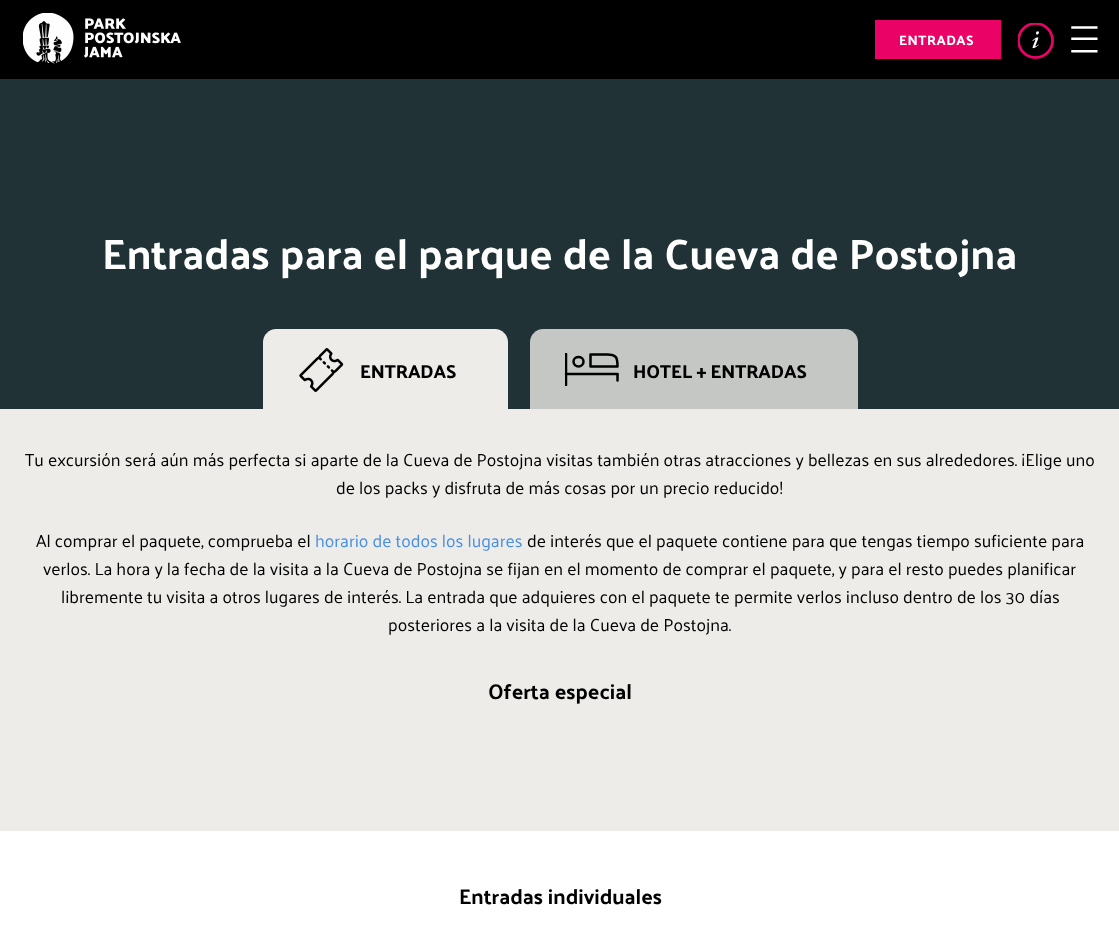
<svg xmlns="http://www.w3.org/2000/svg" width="1119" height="948">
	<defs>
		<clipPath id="clip1"><rect x="565" y="353" width="54" height="33" /></clipPath>
	</defs>
	<rect width="100%" height="100%" fill="#EDECE9" />
	<rect x="0" y="0" width="1119" height="79" fill="#000000" />
	<image x="23" y="13" width="158" height="51" href="assets/img1.png" />
	<rect x="875" y="20" width="126" height="39" fill="#EA0267" />
	<text x="899" y="45" font-family="Palanquin Dark" font-size="13.75" font-weight="500" letter-spacing="0.5" fill="#FFFFFF">ENTRADAS</text>
	<image x="1018" y="23" width="36" height="36" href="assets/img2.png" />
	<image x="1071" y="26" width="27" height="27" href="assets/img3.png" />
	<rect x="0" y="79" width="1119" height="330" fill="#203235" />
	<text x="102" y="269" font-family="Palanquin" font-size="42.5" font-weight="700" fill="#FFFFFF">Entradas para el parque de la Cueva de Postojna</text>
	<path d="M276 329H495C502 329 508 335 508 342V410H263V342C263 335 269 329 276 329Z" fill="#EDECE9" />
	<image x="299" y="348" width="45" height="44" href="assets/img4.png" />
	<text x="360" y="378" font-family="Palanquin Dark" font-size="18.75" font-weight="500" letter-spacing="-0.1" fill="#000000">ENTRADAS</text>
	<path d="M543 329H845C852 329 858 335 858 342V410H530V342C530 335 536 329 543 329Z" fill="#EDECE9" fill-opacity="0.8" />
	<path d="M566 374H617.5M573.5 361.5C573.5 368 583.5 368 583.5 361.5C583.5 355.5 573.5 355.5 573.5 361.5ZM590.5 366.5H617.5C617.5 357.5 616.5 354.5 607 354.5H590.5Z" fill="none" stroke="#000000" stroke-width="2.5" stroke-linecap="round" stroke-linejoin="round" />
	<g clip-path="url(#clip1)">
		<path d="M566 354V385M617.5 374.5V380.5" fill="none" stroke="#000000" stroke-width="2.5" stroke-linecap="round" stroke-linejoin="round" />
	</g>
	<text x="633" y="378" font-family="Palanquin Dark" font-size="18.75" font-weight="500" letter-spacing="-0.1" fill="#000000">HOTEL + ENTRADAS</text>
	<g font-family="Palanquin" font-size="17.5" fill="#000000">
		<text x="25" y="466">Tu excursión será aún más perfecta si aparte de la Cueva de Postojna visitas también otras atracciones y bellezas en sus alrededores. ¡Elige uno</text>
		<text x="336" y="494">de los packs y disfruta de más cosas por un precio reducido!</text>
		<text x="36" y="547">Al comprar el paquete, comprueba el</text>
	</g>
	<text x="315" y="547" font-family="Palanquin" font-size="17.5" fill="#4A90E2">horario de todos los lugares</text>
	<g font-family="Palanquin" font-size="17.5" fill="#000000">
		<text x="527" y="547">de interés que el paquete contiene para que tengas tiempo suficiente para</text>
		<text x="43" y="575">verlos. La hora y la fecha de la visita a la Cueva de Postojna se fijan en el momento de comprar el paquete, y para el resto puedes planificar</text>
		<text x="61" y="603">libremente tu visita a otros lugares de interés. La entrada que adquieres con el paquete te permite verlos incluso dentro de los 30 días</text>
		<text x="388" y="631">posteriores a la visita de la Cueva de Postojna.</text>
	</g>
	<text x="488" y="699" font-family="Palanquin" font-size="21.25" font-weight="700" fill="#000000">Oferta especial</text>
	<rect x="0" y="831" width="1119" height="117" fill="#FFFFFF" />
	<text x="459" y="904" font-family="Palanquin" font-size="21.25" font-weight="700" fill="#000000">Entradas individuales</text>
</svg>
